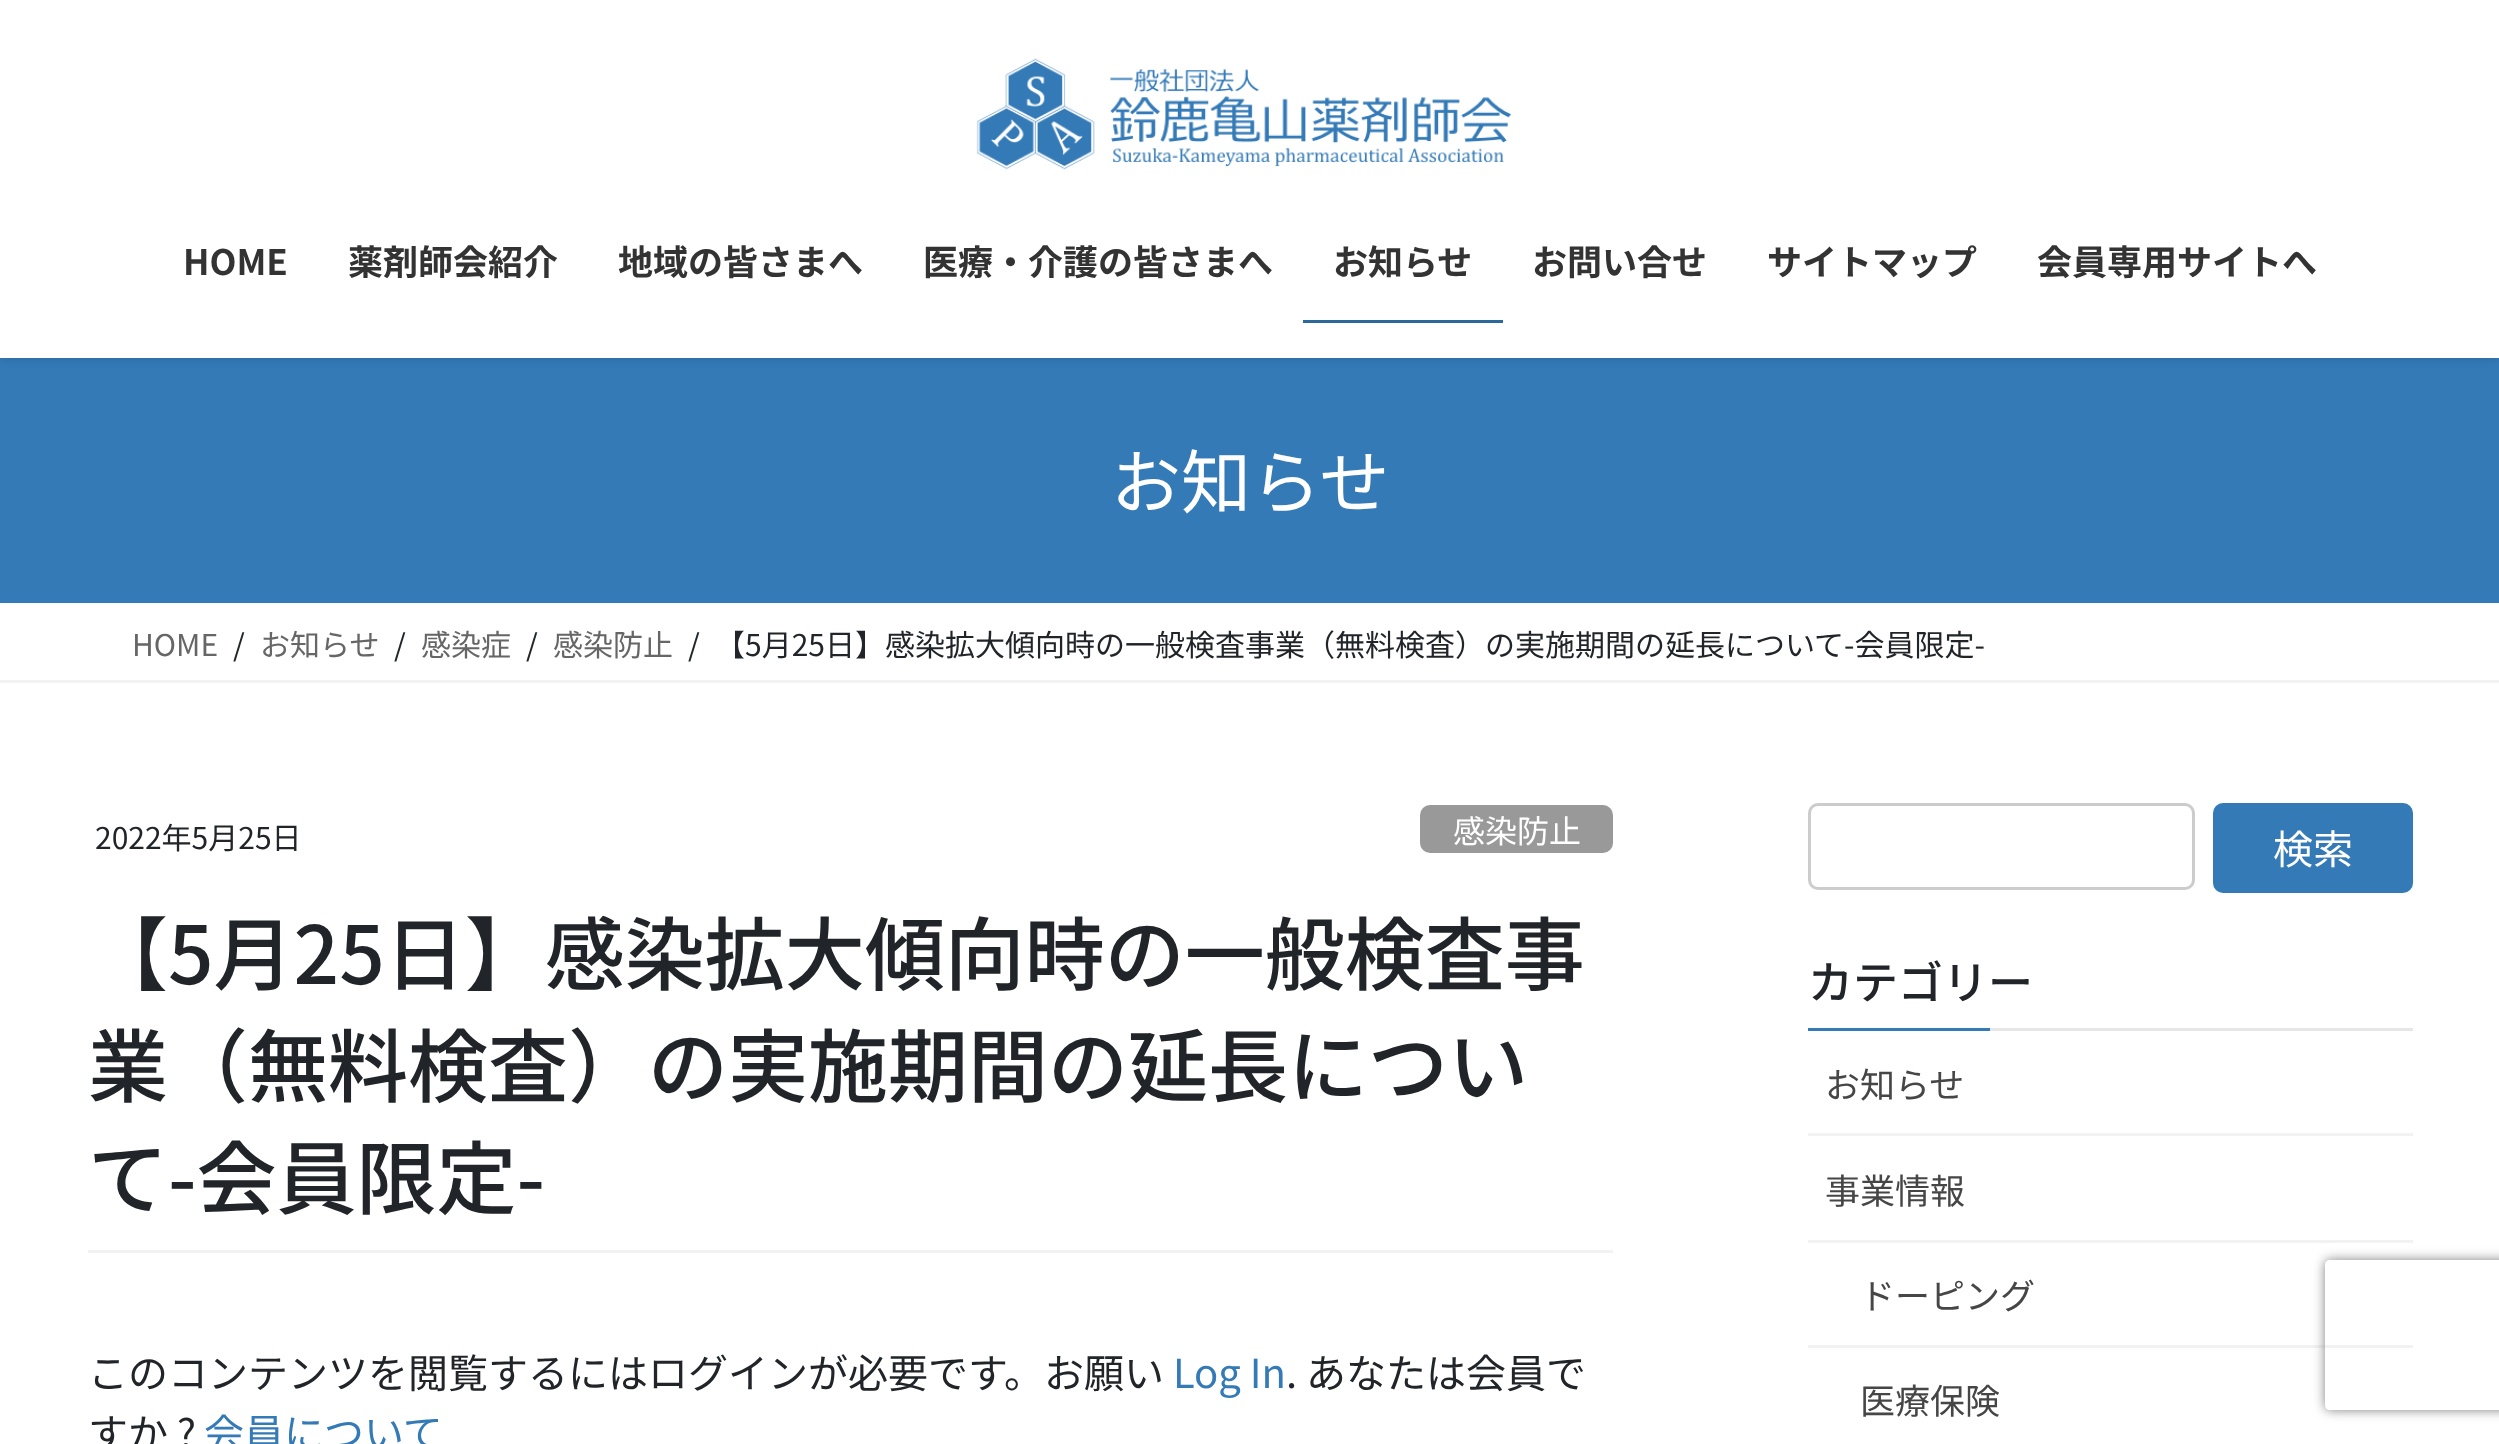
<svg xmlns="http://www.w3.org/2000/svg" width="2499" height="1444">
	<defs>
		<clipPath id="clip1"><path d="M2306 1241H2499V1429H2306ZM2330 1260H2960C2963 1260 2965 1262 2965 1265V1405C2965 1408 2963 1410 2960 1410H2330C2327 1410 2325 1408 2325 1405V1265C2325 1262 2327 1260 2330 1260Z" clip-rule="evenodd" /></clipPath>
	</defs>
	<rect width="100%" height="100%" fill="#FFFFFF" />
	<rect x="0" y="358" width="2499" height="245" fill="#337AB7" />
	<rect x="0" y="3" width="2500" height="357" fill="#000000" fill-opacity="0.1" filter="blur(4px)" />
	<rect x="0" y="0" width="2499" height="358" fill="#FFFFFF" />
	<image x="976" y="58" width="536" height="112" href="assets/img1.png" />
	<g font-family="Noto Sans JP" font-size="35" font-weight="700" fill="#333333">
		<text x="183" y="275">HOME</text>
		<text x="348" y="275">薬剤師会紹介</text>
		<text x="618" y="275">地域の皆さまへ</text>
		<text x="923" y="275">医療・介護の皆さまへ</text>
		<text x="1333" y="275">お知らせ</text>
	</g>
	<rect x="1303" y="320" width="200" height="3" fill="#2B689C" />
	<g font-family="Noto Sans JP" font-size="35" font-weight="700" fill="#333333">
		<text x="1532" y="275">お問い合せ</text>
		<text x="1767" y="275">サイトマップ</text>
		<text x="2037" y="275">会員専用サイトへ</text>
	</g>
	<text x="1111" y="508" font-family="Noto Sans JP" font-size="70" fill="#FFFFFF">お知らせ</text>
	<rect x="0" y="680" width="2499" height="3" fill="#F2F2F2" />
	<text x="132" y="656" font-family="Noto Sans JP" font-size="30" fill="#666666">HOME</text>
	<text x="233" y="656" font-family="Noto Sans JP" font-size="30" fill="#212529">/</text>
	<text x="260" y="656" font-family="Noto Sans JP" font-size="30" fill="#666666">お知らせ</text>
	<text x="394" y="656" font-family="Noto Sans JP" font-size="30" fill="#212529">/</text>
	<text x="421" y="656" font-family="Noto Sans JP" font-size="30" fill="#666666">感染症</text>
	<text x="526" y="656" font-family="Noto Sans JP" font-size="30" fill="#212529">/</text>
	<text x="553" y="656" font-family="Noto Sans JP" font-size="30" fill="#666666">感染防止</text>
	<g font-family="Noto Sans JP" font-size="30" fill="#212529">
		<text x="688" y="656">/</text>
		<text x="715" y="656">【5月25日】感染拡大傾向時の一般検査事業（無料検査）の実施期間の延長について-会員限定-</text>
	</g>
	<rect x="88" y="1250" width="1525" height="3" fill="#F2F2F2" />
	<text x="95" y="849" font-family="Noto Sans JP" font-size="30" fill="#212529">2022年5月25日</text>
	<rect x="1420" y="805" width="193" height="48" rx="10" fill="#999999" />
	<text x="1453" y="843" font-family="Noto Sans JP" font-size="32" fill="#FFFFFF">感染防止</text>
	<g font-family="Noto Sans JP" font-size="80" font-weight="500" fill="#212529">
		<text x="88" y="984">【5月25日】感染拡大傾向時の一般検査事</text>
		<text x="88" y="1096">業（無料検査）の実施期間の延長につい</text>
		<text x="88" y="1208">て-会員限定-</text>
	</g>
	<text x="88" y="1388" font-family="Noto Sans JP" font-size="40" fill="#212529">このコンテンツを閲覧するにはログインが必要です。お願い</text>
	<text x="1173" y="1388" font-family="Noto Sans JP" font-size="40" fill="#337AB7">Log In</text>
	<g font-family="Noto Sans JP" font-size="40" fill="#212529">
		<text x="1286" y="1388">. あなたは会員で</text>
		<text x="88" y="1448">すか ?</text>
	</g>
	<text x="204" y="1448" font-family="Noto Sans JP" font-size="40" fill="#337AB7">会員について</text>
	<rect x="1809.5" y="804.5" width="384" height="84" rx="8.5" fill="none" stroke="#CCCCCC" stroke-width="3" />
	<rect x="2213" y="803" width="200" height="90" rx="10" fill="#337AB7" />
	<text x="2273" y="864" font-family="Noto Sans JP" font-size="40" fill="#FFFFFF">検索</text>
	<rect x="1990" y="1028" width="423" height="3" fill="#E6E6E6" />
	<text x="1808" y="999" font-family="Noto Sans JP" font-size="45" font-weight="500" fill="#212529">カテゴリー</text>
	<rect x="1808" y="1028" width="182" height="3" fill="#337AB7" />
	<rect x="1808" y="1133" width="605" height="3" fill="#F2F2F2" />
	<text x="1825" y="1098" font-family="Noto Sans JP" font-size="35" fill="#464646">お知らせ</text>
	<rect x="1808" y="1240" width="605" height="3" fill="#F2F2F2" />
	<text x="1825" y="1204" font-family="Noto Sans JP" font-size="35" fill="#464646">事業情報</text>
	<rect x="1808" y="1345" width="605" height="3" fill="#F2F2F2" />
	<g font-family="Noto Sans JP" font-size="35" fill="#464646">
		<text x="1860" y="1309">ドーピング</text>
		<text x="1860" y="1414">医療保険</text>
	</g>
	<g clip-path="url(#clip1)">
		<rect x="2325" y="1260" width="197" height="150" rx="5" fill="#808080" filter="blur(6px)" />
	</g>
</svg>
